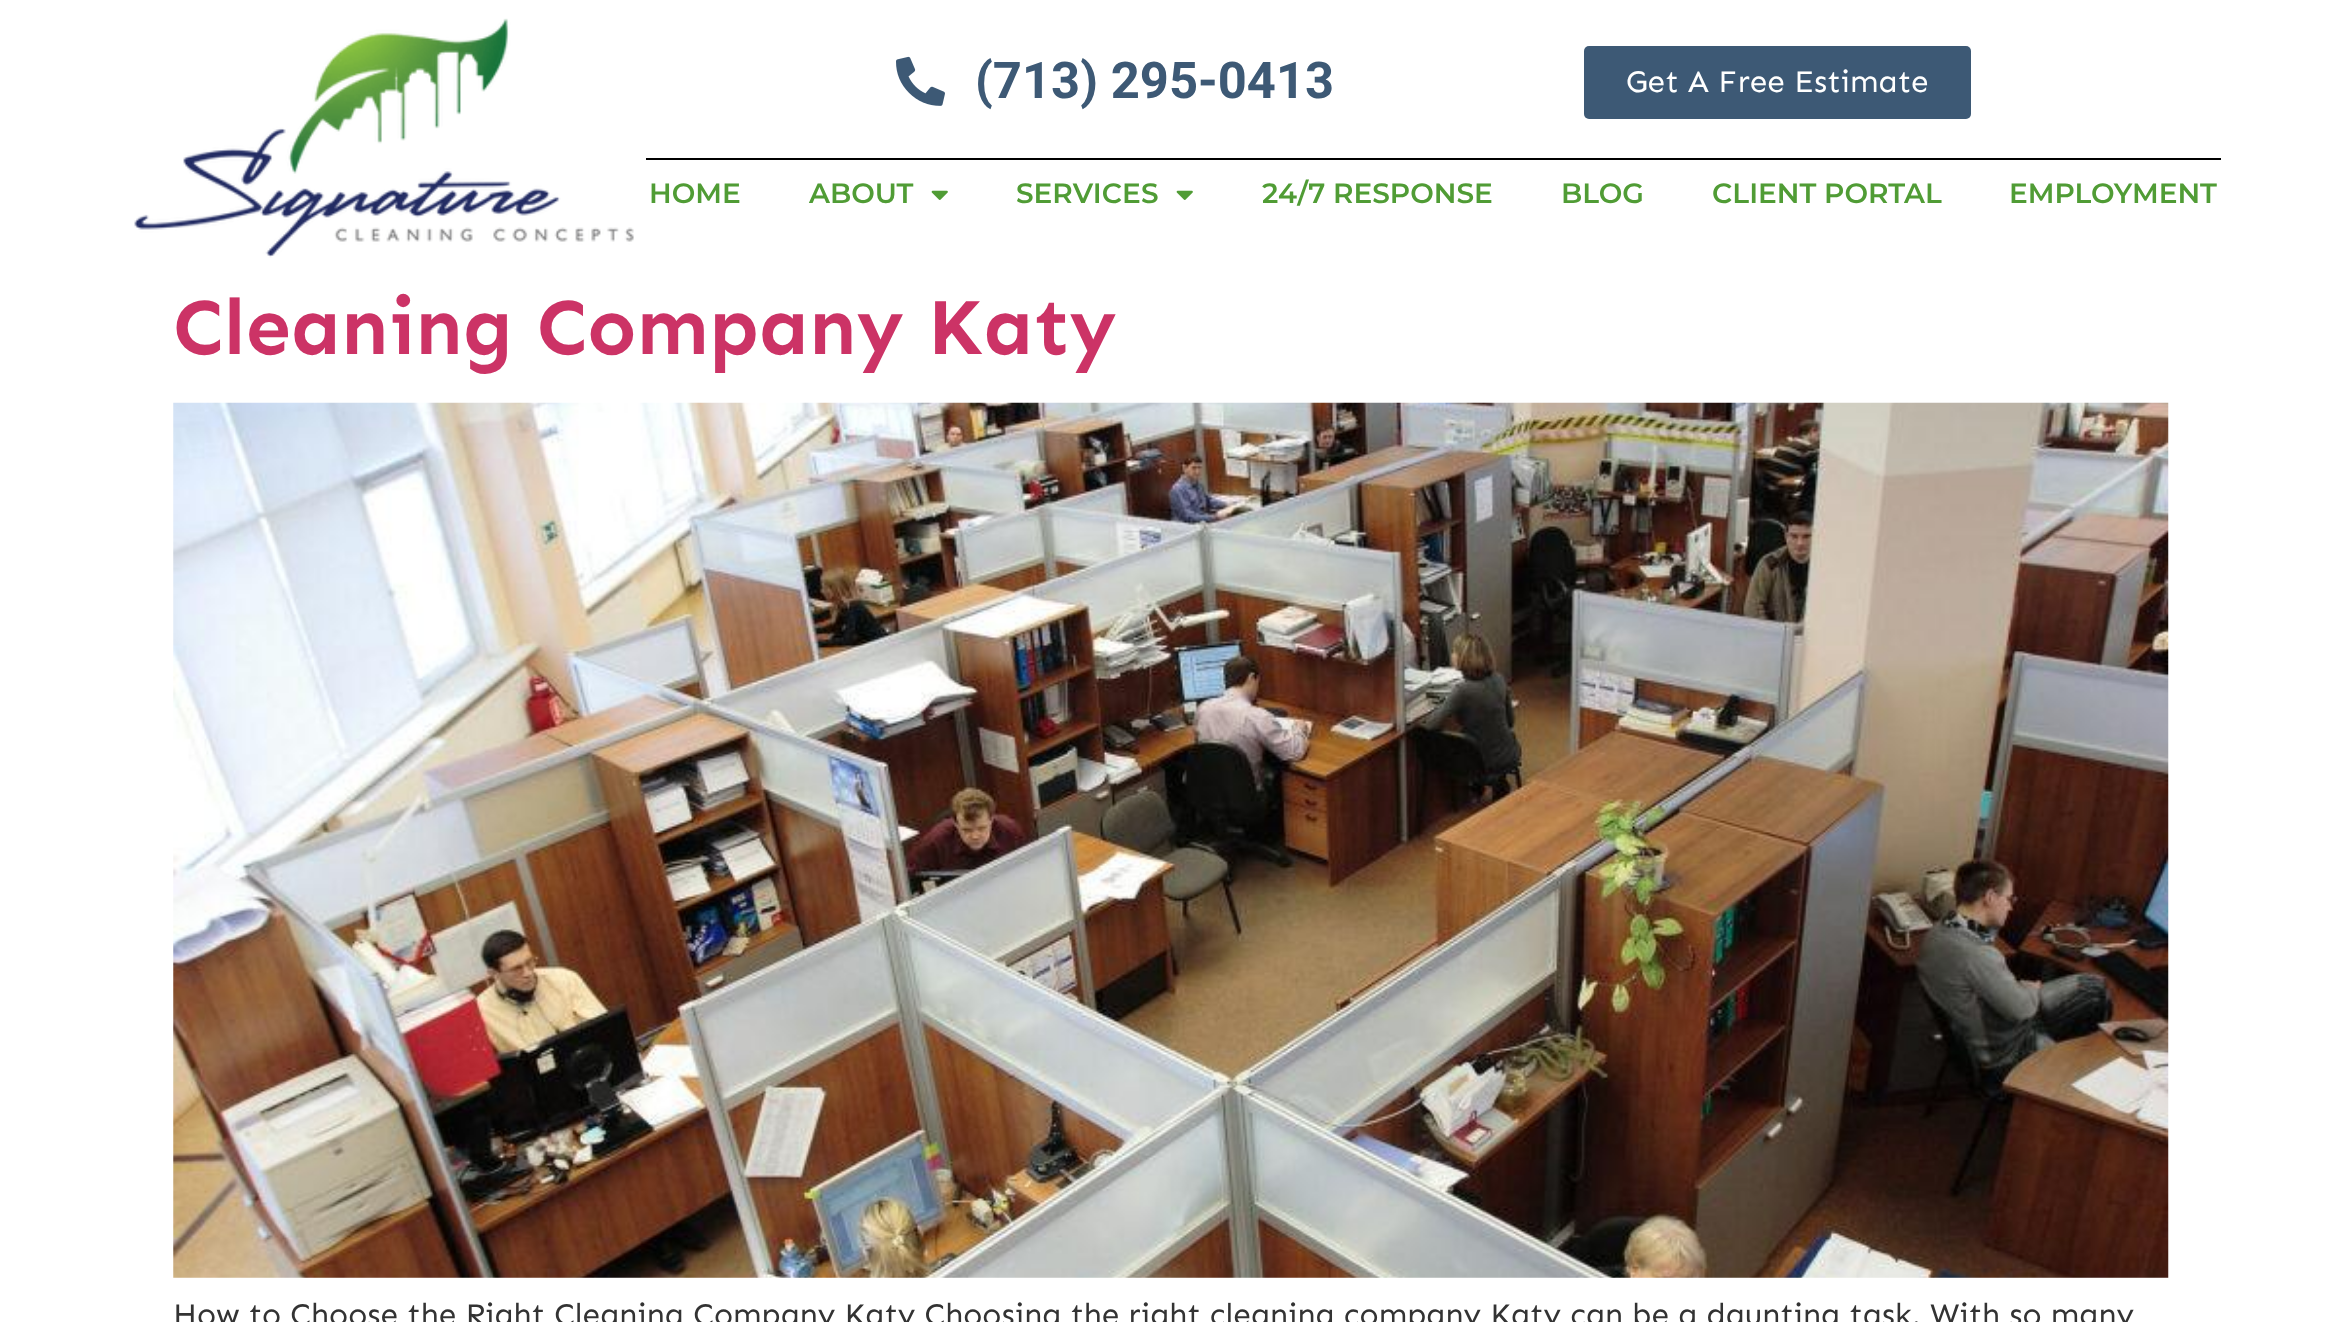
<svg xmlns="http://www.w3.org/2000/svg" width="2340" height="1322">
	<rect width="100%" height="100%" fill="#FFFFFF" />
	<image x="134" y="18" width="500" height="240" href="assets/img1.png" />
	<image x="896" y="56" width="49" height="50" href="assets/img2.png" />
	<text x="975" y="98" font-family="Roboto" font-size="50.75" font-weight="700" fill="#3D5975">(713) 295-0413</text>
	<rect x="1584" y="46" width="387" height="73" rx="5" fill="#3D5975" />
	<text x="1626" y="92" font-family="Sen" font-size="31.5" fill="#FFFFFF">Get A Free Estimate</text>
	<rect x="646" y="158" width="1575" height="2" fill="#000000" />
	<g font-family="Montserrat" font-size="28" font-weight="600" fill="#509C35">
		<text x="649" y="203">HOME</text>
		<text x="809" y="203">ABOUT</text>
	</g>
	<image x="931" y="190" width="17" height="10" href="assets/img3.png" />
	<text x="1016" y="203" font-family="Montserrat" font-size="28" font-weight="600" fill="#509C35">SERVICES</text>
	<image x="1176" y="190" width="17" height="10" href="assets/img3.png" />
	<g font-family="Montserrat" font-size="28" font-weight="600" fill="#509C35">
		<text x="1262" y="203">24/7 RESPONSE</text>
		<text x="1561" y="203">BLOG</text>
		<text x="1712" y="203">CLIENT PORTAL</text>
		<text x="2009" y="203">EMPLOYMENT</text>
	</g>
	<text x="173" y="354" font-family="Sen" font-size="80.5" font-weight="700" fill="#CC3366">Cleaning Company Katy</text>
	<image x="173" y="402" width="1996" height="876" href="assets/img4.png" />
	<text x="173" y="1325" font-family="Sen" font-size="31.5" fill="#333333">How to Choose the Right Cleaning Company Katy Choosing the right cleaning company Katy can be a daunting task. With so many</text>
</svg>
